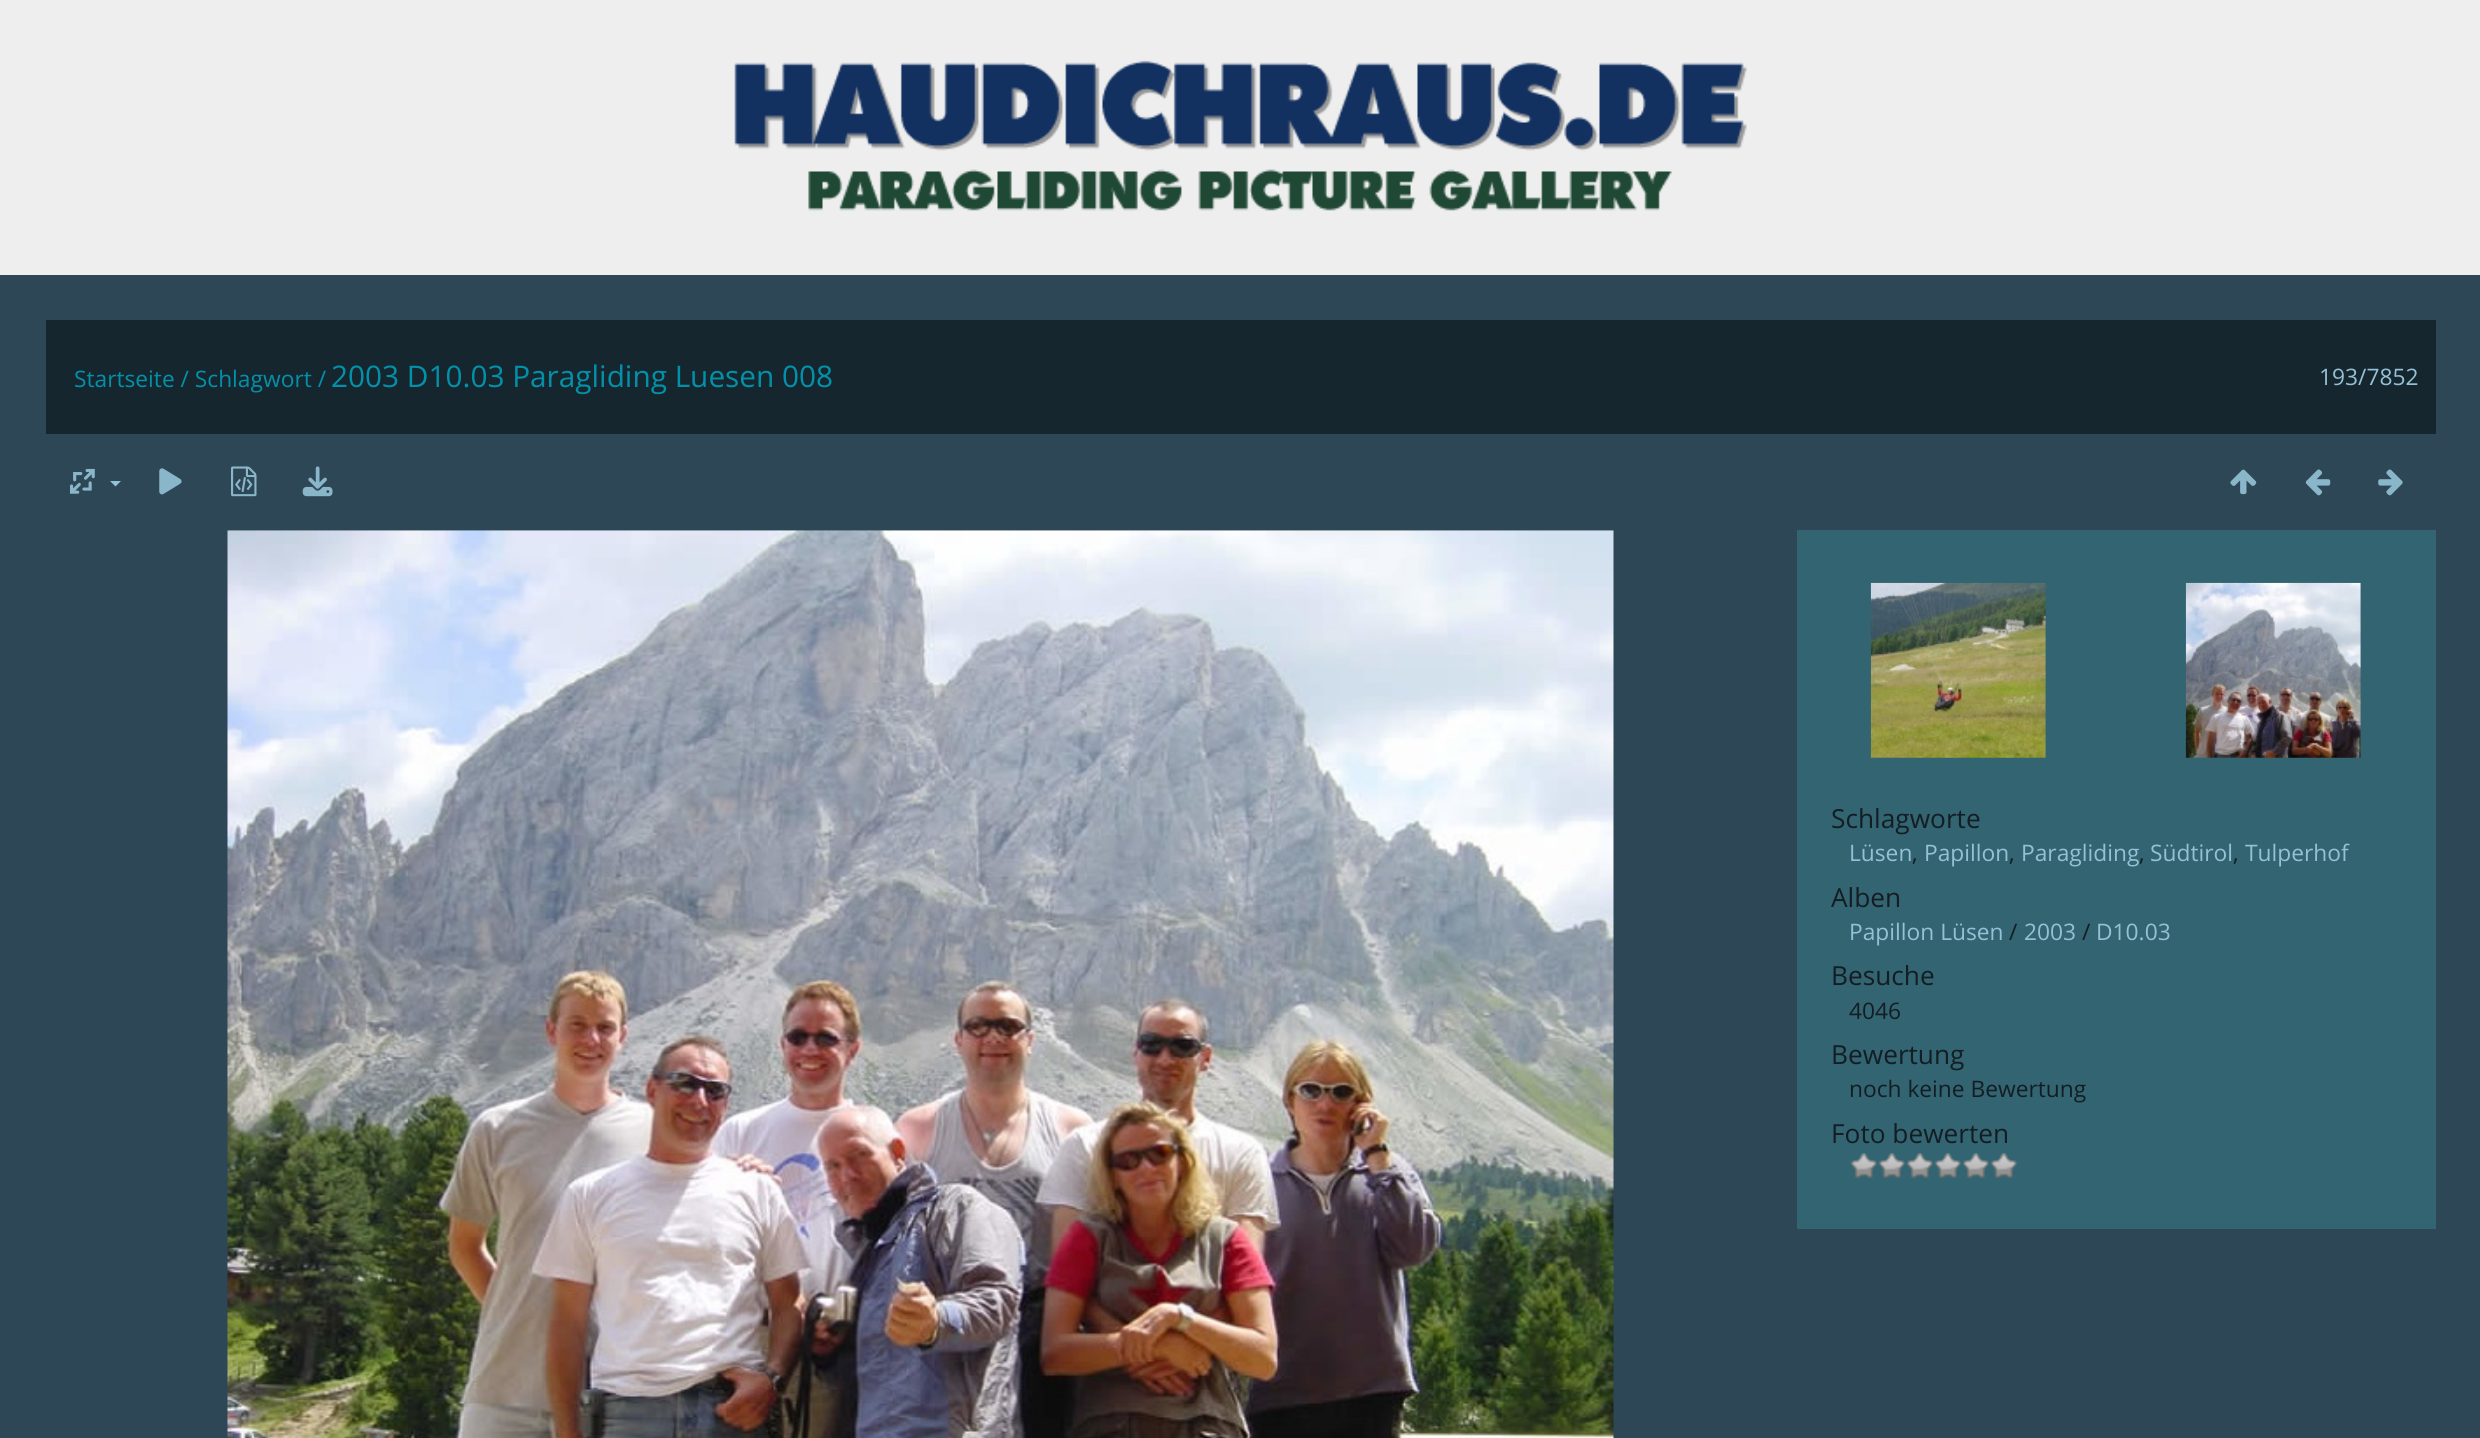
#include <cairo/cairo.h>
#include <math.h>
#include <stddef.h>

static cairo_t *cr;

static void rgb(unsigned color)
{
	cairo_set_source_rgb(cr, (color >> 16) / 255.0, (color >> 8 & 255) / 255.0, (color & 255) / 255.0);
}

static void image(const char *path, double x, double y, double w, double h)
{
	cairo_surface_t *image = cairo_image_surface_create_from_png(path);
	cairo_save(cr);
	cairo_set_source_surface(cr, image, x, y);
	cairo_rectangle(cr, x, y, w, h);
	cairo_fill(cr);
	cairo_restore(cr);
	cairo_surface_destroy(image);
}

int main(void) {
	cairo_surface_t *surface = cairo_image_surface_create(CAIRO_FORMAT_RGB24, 2480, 1438);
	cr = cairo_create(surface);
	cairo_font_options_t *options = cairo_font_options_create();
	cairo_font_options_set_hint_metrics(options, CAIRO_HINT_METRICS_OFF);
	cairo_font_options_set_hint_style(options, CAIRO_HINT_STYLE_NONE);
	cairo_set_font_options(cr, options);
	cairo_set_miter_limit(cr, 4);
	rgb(0x2e4756);
	cairo_paint(cr);
	rgb(0xeeeeee);
	cairo_rectangle(cr, 0, 0, 2480, 275);
	cairo_fill(cr);
	image("img/1.png", 734, 60, 1013, 151);
	rgb(0x16262e);
	cairo_rectangle(cr, 46, 320, 2390, 114);
	cairo_fill(cr);
	image("img/2.png", 70, 468, 25, 26);
	rgb(0x93c2d6);
	cairo_new_path(cr);
	cairo_move_to(cr, 110, 481);
	cairo_line_to(cr, 121, 481);
	cairo_line_to(cr, 115.5, 486.5);
	cairo_close_path(cr);
	cairo_fill(cr);
	image("img/3.png", 159, 468, 23, 27);
	image("img/4.png", 231, 466, 26, 31);
	image("img/5.png", 302, 466, 31, 31);
	image("img/6.png", 2230, 469, 27, 26);
	image("img/7.png", 2305, 469, 26, 27);
	image("img/8.png", 2378, 469, 25, 27);
	image("img/9.png", 227, 530, 1387, 908);
	rgb(0x326471);
	cairo_rectangle(cr, 1797, 530, 639, 699);
	cairo_fill(cr);
	image("img/10.png", 1870, 582, 176, 176);
	image("img/11.png", 2185, 582, 176, 176);
	image("img/12.png", 1850, 1153, 28, 26);
	image("img/13.png", 1878, 1153, 28, 26);
	image("img/12.png", 1906, 1153, 28, 26);
	image("img/13.png", 1934, 1153, 28, 26);
	image("img/13.png", 1962, 1153, 28, 26);
	image("img/13.png", 1990, 1153, 28, 26);
	cairo_select_font_face(cr, "Open Sans", CAIRO_FONT_SLANT_NORMAL, CAIRO_FONT_WEIGHT_NORMAL);
	cairo_set_font_size(cr, 22.75);
	rgb(0x0391aa);
	cairo_move_to(cr, 74, 387);
	cairo_show_text(cr, "Startseite / Schlagwort /");
	cairo_set_font_size(cr, 29.75);
	cairo_move_to(cr, 331, 387);
	cairo_show_text(cr, "2003 D10.03 Paragliding Luesen 008");
	cairo_set_font_size(cr, 22.75);
	rgb(0x93c2d6);
	cairo_move_to(cr, 2319, 385);
	cairo_show_text(cr, "193/7852");
	cairo_set_font_size(cr, 26.25);
	rgb(0x131d23);
	cairo_move_to(cr, 1831, 828);
	cairo_show_text(cr, "Schlagworte");
	cairo_set_font_size(cr, 22.75);
	rgb(0x93c2d6);
	cairo_move_to(cr, 1849, 861);
	cairo_show_text(cr, "Lüsen");
	rgb(0x131d23);
	cairo_move_to(cr, 1912, 861);
	cairo_show_text(cr, ",");
	rgb(0x93c2d6);
	cairo_move_to(cr, 1924, 861);
	cairo_show_text(cr, "Papillon");
	rgb(0x131d23);
	cairo_move_to(cr, 2009, 861);
	cairo_show_text(cr, ",");
	rgb(0x93c2d6);
	cairo_move_to(cr, 2021, 861);
	cairo_show_text(cr, "Paragliding");
	rgb(0x131d23);
	cairo_move_to(cr, 2139, 861);
	cairo_show_text(cr, ",");
	rgb(0x93c2d6);
	cairo_move_to(cr, 2150, 861);
	cairo_show_text(cr, "Südtirol");
	rgb(0x131d23);
	cairo_move_to(cr, 2233, 861);
	cairo_show_text(cr, ",");
	rgb(0x93c2d6);
	cairo_move_to(cr, 2245, 861);
	cairo_show_text(cr, "Tulperhof");
	cairo_set_font_size(cr, 26.25);
	rgb(0x131d23);
	cairo_move_to(cr, 1831, 907);
	cairo_show_text(cr, "Alben");
	cairo_set_font_size(cr, 22.75);
	rgb(0x93c2d6);
	cairo_move_to(cr, 1849, 940);
	cairo_show_text(cr, "Papillon Lüsen");
	rgb(0x131d23);
	cairo_move_to(cr, 2009, 940);
	cairo_show_text(cr, "/");
	rgb(0x93c2d6);
	cairo_move_to(cr, 2024, 940);
	cairo_show_text(cr, "2003");
	rgb(0x131d23);
	cairo_move_to(cr, 2082, 940);
	cairo_show_text(cr, "/");
	rgb(0x93c2d6);
	cairo_move_to(cr, 2096, 940);
	cairo_show_text(cr, "D10.03");
	cairo_set_font_size(cr, 26.25);
	rgb(0x131d23);
	cairo_move_to(cr, 1831, 985);
	cairo_show_text(cr, "Besuche");
	cairo_set_font_size(cr, 22.75);
	cairo_move_to(cr, 1849, 1019);
	cairo_show_text(cr, "4046");
	cairo_set_font_size(cr, 26.25);
	cairo_move_to(cr, 1831, 1064);
	cairo_show_text(cr, "Bewertung");
	cairo_set_font_size(cr, 22.75);
	cairo_move_to(cr, 1849, 1097);
	cairo_show_text(cr, "noch keine Bewertung");
	cairo_set_font_size(cr, 26.25);
	cairo_move_to(cr, 1831, 1143);
	cairo_show_text(cr, "Foto bewerten");
	cairo_surface_write_to_png(surface, "page.png");
	cairo_font_options_destroy(options);
	cairo_destroy(cr);
	cairo_surface_destroy(surface);
	return 0;
}
